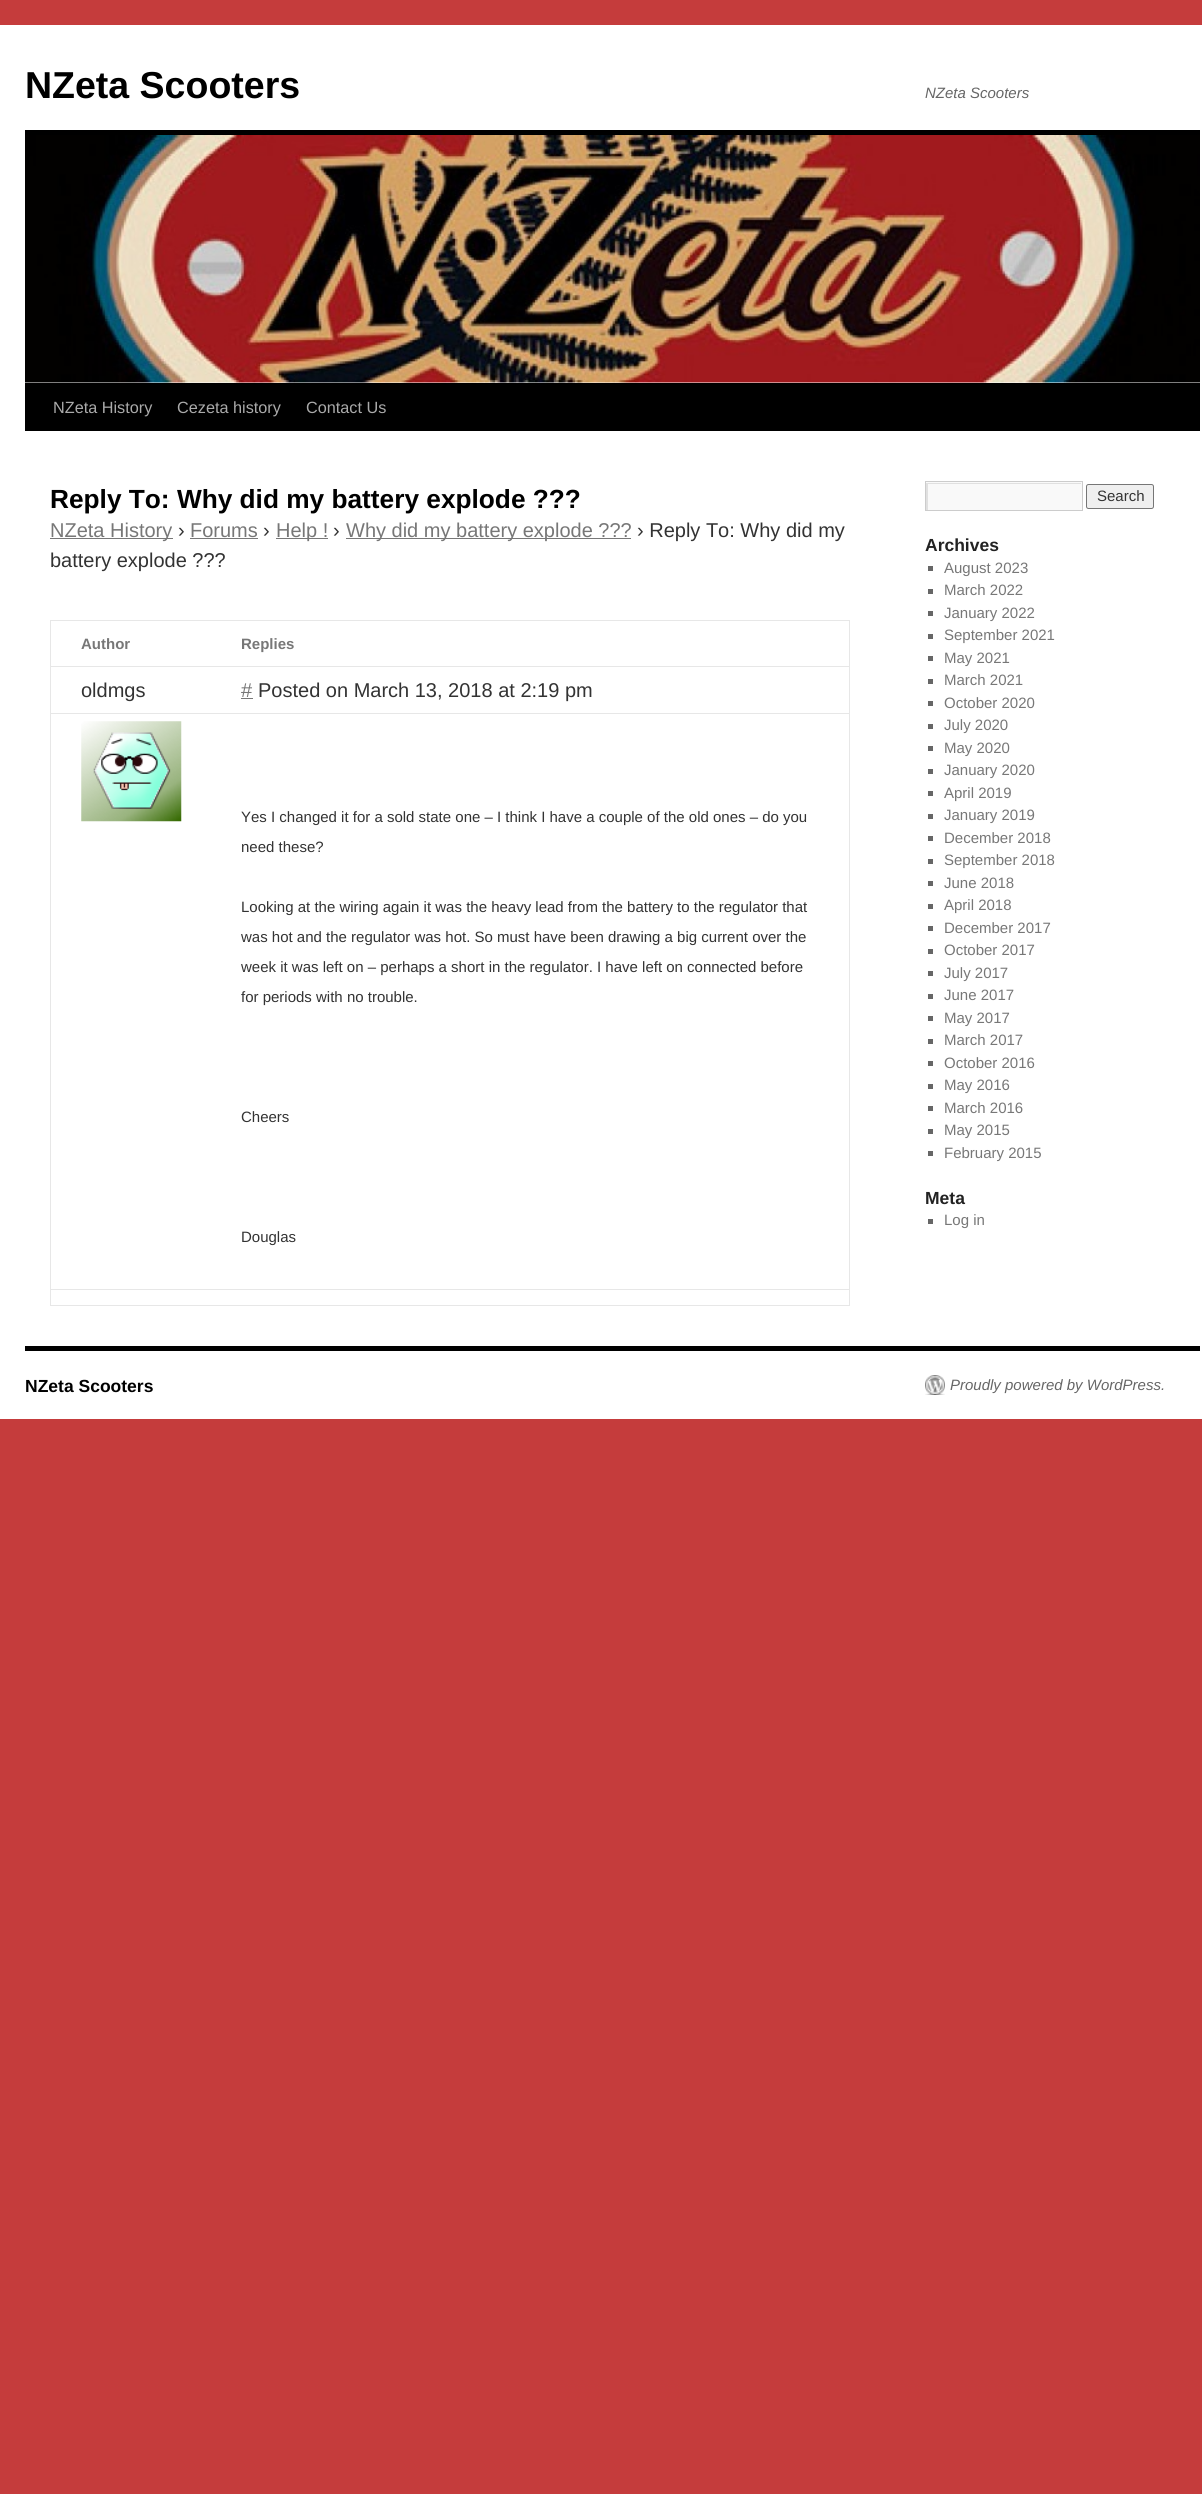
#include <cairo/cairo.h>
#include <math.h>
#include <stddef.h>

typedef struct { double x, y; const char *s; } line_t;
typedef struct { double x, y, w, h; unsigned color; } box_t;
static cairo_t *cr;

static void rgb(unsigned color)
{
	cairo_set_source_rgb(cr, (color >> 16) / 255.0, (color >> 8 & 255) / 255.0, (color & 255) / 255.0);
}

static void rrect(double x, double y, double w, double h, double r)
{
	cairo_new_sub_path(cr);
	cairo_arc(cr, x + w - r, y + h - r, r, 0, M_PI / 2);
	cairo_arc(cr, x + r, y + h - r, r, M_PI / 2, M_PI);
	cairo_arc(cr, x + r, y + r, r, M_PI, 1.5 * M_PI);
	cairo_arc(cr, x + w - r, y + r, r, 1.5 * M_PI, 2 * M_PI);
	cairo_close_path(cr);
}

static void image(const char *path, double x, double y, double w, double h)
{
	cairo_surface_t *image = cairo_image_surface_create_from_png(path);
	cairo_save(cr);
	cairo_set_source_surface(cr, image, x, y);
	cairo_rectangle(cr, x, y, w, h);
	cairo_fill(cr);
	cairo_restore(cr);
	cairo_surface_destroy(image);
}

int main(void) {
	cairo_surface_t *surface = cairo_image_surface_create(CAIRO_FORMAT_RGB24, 1202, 2494);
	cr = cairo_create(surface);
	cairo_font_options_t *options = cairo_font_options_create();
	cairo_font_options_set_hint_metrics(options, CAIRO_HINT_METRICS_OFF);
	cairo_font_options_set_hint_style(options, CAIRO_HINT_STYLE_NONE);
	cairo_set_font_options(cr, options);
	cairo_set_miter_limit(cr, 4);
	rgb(0xc53c3c);
	cairo_paint(cr);
	{
		static const box_t items[] = {
			{0, 25, 1202, 1394, 0xffffff},
			{25, 130, 1175, 5, 0x000000},
			{25, 383, 1175, 48, 0x000000},
		};
		for (size_t i = 0; i < sizeof items / sizeof *items; i++) {
			rgb(items[i].color);
			cairo_rectangle(cr, items[i].x, items[i].y, items[i].w, items[i].h);
			cairo_fill(cr);
		}
	}
	image("img/1.png", 25, 135, 1175, 248);
	{
		static const box_t items[] = {
			{50, 538, 123, 1, 0x777777},
			{190, 538, 68, 1, 0x777777},
			{276, 538, 52, 1, 0x777777},
			{346, 538, 285, 1, 0x777777},
			{50, 620, 800, 1, 0xe7e7e7},
			{849, 620, 1, 686, 0xe7e7e7},
			{50, 1305, 800, 1, 0xe7e7e7},
			{50, 620, 1, 686, 0xe7e7e7},
			{50, 666, 800, 1, 0xe7e7e7},
			{241, 698, 12, 1, 0x777777},
		};
		for (size_t i = 0; i < sizeof items / sizeof *items; i++) {
			rgb(items[i].color);
			cairo_rectangle(cr, items[i].x, items[i].y, items[i].w, items[i].h);
			cairo_fill(cr);
		}
	}
	image("img/2.png", 81, 721, 101, 101);
	{
		static const box_t items[] = {
			{50, 713, 800, 1, 0xe7e7e7},
			{50, 1289, 800, 1, 0xe7e7e7},
			{926, 482, 156, 28, 0xf9f9f9},
		};
		for (size_t i = 0; i < sizeof items / sizeof *items; i++) {
			rgb(items[i].color);
			cairo_rectangle(cr, items[i].x, items[i].y, items[i].w, items[i].h);
			cairo_fill(cr);
		}
	}
	cairo_save(cr);
	cairo_rectangle(cr, 926, 483, 155, 27);
	cairo_clip(cr);
	rgb(0xe0e0e0);
	cairo_set_fill_rule(cr, CAIRO_FILL_RULE_EVEN_ODD);
	cairo_new_path(cr);
	cairo_move_to(cr, 802, 359);
	cairo_line_to(cr, 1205, 359);
	cairo_line_to(cr, 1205, 634);
	cairo_line_to(cr, 802, 634);
	cairo_close_path(cr);
	cairo_move_to(cr, 928, 484);
	cairo_line_to(cr, 1082, 484);
	cairo_line_to(cr, 1082, 511);
	cairo_line_to(cr, 928, 511);
	cairo_close_path(cr);
	cairo_fill(cr);
	cairo_restore(cr);
	cairo_rectangle(cr, 925.5, 481.5, 157, 29);
	rgb(0xcccccc);
	cairo_set_line_width(cr, 1);
	cairo_stroke(cr);
	rgb(0xefefef);
	rrect(1086.5, 484.5, 67, 24, 2);
	cairo_fill_preserve(cr);
	rgb(0x767676);
	cairo_stroke(cr);
	{
		static const box_t items[] = {
			{928, 566, 5, 5, 0x666666},
			{928, 589, 5, 5, 0x666666},
			{928, 611, 5, 5, 0x666666},
			{928, 634, 5, 5, 0x666666},
			{928, 656, 5, 5, 0x666666},
			{928, 679, 5, 5, 0x666666},
			{928, 701, 5, 5, 0x666666},
			{928, 724, 5, 5, 0x666666},
			{928, 746, 5, 5, 0x666666},
			{928, 769, 5, 5, 0x666666},
			{928, 791, 5, 5, 0x666666},
			{928, 814, 5, 5, 0x666666},
			{928, 836, 5, 5, 0x666666},
			{928, 859, 5, 5, 0x666666},
			{928, 881, 5, 5, 0x666666},
			{928, 904, 5, 5, 0x666666},
			{928, 926, 5, 5, 0x666666},
			{928, 949, 5, 5, 0x666666},
			{928, 971, 5, 5, 0x666666},
			{928, 994, 5, 5, 0x666666},
			{928, 1016, 5, 5, 0x666666},
			{928, 1039, 5, 5, 0x666666},
			{928, 1061, 5, 5, 0x666666},
			{928, 1084, 5, 5, 0x666666},
			{928, 1106, 5, 5, 0x666666},
			{928, 1129, 5, 5, 0x666666},
			{928, 1151, 5, 5, 0x666666},
			{928, 1219, 5, 5, 0x666666},
			{25, 1346, 1175, 5, 0x000000},
		};
		for (size_t i = 0; i < sizeof items / sizeof *items; i++) {
			rgb(items[i].color);
			cairo_rectangle(cr, items[i].x, items[i].y, items[i].w, items[i].h);
			cairo_fill(cr);
		}
	}
	image("img/3.png", 925, 1375, 20, 20);
	cairo_select_font_face(cr, "Liberation Sans", CAIRO_FONT_SLANT_NORMAL, CAIRO_FONT_WEIGHT_BOLD);
	cairo_set_font_size(cr, 37.5);
	cairo_move_to(cr, 25, 98);
	cairo_show_text(cr, "NZeta Scooters");
	cairo_select_font_face(cr, "Liberation Sans", CAIRO_FONT_SLANT_ITALIC, CAIRO_FONT_WEIGHT_NORMAL);
	cairo_set_font_size(cr, 15);
	rgb(0x666666);
	cairo_move_to(cr, 925, 98);
	cairo_show_text(cr, "NZeta Scooters");
	cairo_select_font_face(cr, "Liberation Sans", CAIRO_FONT_SLANT_NORMAL, CAIRO_FONT_WEIGHT_NORMAL);
	cairo_set_font_size(cr, 16.25);
	rgb(0xaaaaaa);
	{
		static const line_t items[] = {
			{53, 413, "NZeta History"},
			{177, 413, "Cezeta history"},
			{306, 413, "Contact Us"},
		};
		for (size_t i = 0; i < sizeof items / sizeof *items; i++) {
			cairo_move_to(cr, items[i].x, items[i].y);
			cairo_show_text(cr, items[i].s);
		}
	}
	cairo_select_font_face(cr, "Liberation Sans", CAIRO_FONT_SLANT_NORMAL, CAIRO_FONT_WEIGHT_BOLD);
	cairo_set_font_size(cr, 26.25);
	rgb(0x000000);
	cairo_move_to(cr, 50, 508);
	cairo_show_text(cr, "Reply To: Why did my battery explode ?\077?");
	cairo_select_font_face(cr, "Liberation Sans", CAIRO_FONT_SLANT_NORMAL, CAIRO_FONT_WEIGHT_NORMAL);
	cairo_set_font_size(cr, 20);
	rgb(0x777777);
	cairo_move_to(cr, 50, 537);
	cairo_show_text(cr, "NZeta History");
	rgb(0x333333);
	cairo_move_to(cr, 178, 537);
	cairo_show_text(cr, "›");
	rgb(0x777777);
	cairo_move_to(cr, 190, 537);
	cairo_show_text(cr, "Forums");
	rgb(0x333333);
	cairo_move_to(cr, 263, 537);
	cairo_show_text(cr, "›");
	rgb(0x777777);
	cairo_move_to(cr, 276, 537);
	cairo_show_text(cr, "Help !");
	rgb(0x333333);
	cairo_move_to(cr, 333, 537);
	cairo_show_text(cr, "›");
	rgb(0x777777);
	cairo_move_to(cr, 346, 537);
	cairo_show_text(cr, "Why did my battery explode ?\077?");
	rgb(0x333333);
	cairo_move_to(cr, 637, 537);
	cairo_show_text(cr, "› Reply To: Why did my");
	cairo_move_to(cr, 50, 567);
	cairo_show_text(cr, "battery explode ?\077?");
	cairo_select_font_face(cr, "Liberation Sans", CAIRO_FONT_SLANT_NORMAL, CAIRO_FONT_WEIGHT_BOLD);
	cairo_set_font_size(cr, 15);
	rgb(0x777777);
	cairo_move_to(cr, 81, 649);
	cairo_show_text(cr, "Author");
	cairo_move_to(cr, 241, 649);
	cairo_show_text(cr, "Replies");
	cairo_select_font_face(cr, "Liberation Sans", CAIRO_FONT_SLANT_NORMAL, CAIRO_FONT_WEIGHT_NORMAL);
	cairo_set_font_size(cr, 20);
	rgb(0x333333);
	cairo_move_to(cr, 81, 697);
	cairo_show_text(cr, "oldmgs");
	rgb(0x777777);
	cairo_move_to(cr, 241, 697);
	cairo_show_text(cr, "#");
	rgb(0x333333);
	cairo_move_to(cr, 258, 697);
	cairo_show_text(cr, "Posted on March 13, 2018 at 2:19 pm");
	cairo_set_font_size(cr, 15);
	{
		static const line_t items[] = {
			{241, 822, "Yes I changed it for a sold state one – I think I have a couple of the old ones – do you"},
			{241, 852, "need these?"},
			{241, 912, "Looking at the wiring again it was the heavy lead from the battery to the regulator that"},
			{241, 942, "was hot and the regulator was hot. So must have been drawing a big current over the"},
			{241, 972, "week it was left on – perhaps a short in the regulator. I have left on connected before"},
			{241, 1002, "for periods with no trouble."},
			{241, 1122, "Cheers"},
			{241, 1242, "Douglas"},
			{1097, 501, "Search"},
		};
		for (size_t i = 0; i < sizeof items / sizeof *items; i++) {
			cairo_move_to(cr, items[i].x, items[i].y);
			cairo_show_text(cr, items[i].s);
		}
	}
	cairo_select_font_face(cr, "Liberation Sans", CAIRO_FONT_SLANT_NORMAL, CAIRO_FONT_WEIGHT_BOLD);
	cairo_set_font_size(cr, 17.5);
	rgb(0x222222);
	cairo_move_to(cr, 925, 551);
	cairo_show_text(cr, "Archives");
	cairo_select_font_face(cr, "Liberation Sans", CAIRO_FONT_SLANT_NORMAL, CAIRO_FONT_WEIGHT_NORMAL);
	cairo_set_font_size(cr, 15);
	rgb(0x777777);
	{
		static const line_t items[] = {
			{944, 573, "August 2023"},
			{944, 595, "March 2022"},
			{944, 618, "January 2022"},
			{944, 640, "September 2021"},
			{944, 663, "May 2021"},
			{944, 685, "March 2021"},
			{944, 708, "October 2020"},
			{944, 730, "July 2020"},
			{944, 753, "May 2020"},
			{944, 775, "January 2020"},
			{944, 798, "April 2019"},
			{944, 820, "January 2019"},
			{944, 843, "December 2018"},
			{944, 865, "September 2018"},
			{944, 888, "June 2018"},
			{944, 910, "April 2018"},
			{944, 933, "December 2017"},
			{944, 955, "October 2017"},
			{944, 978, "July 2017"},
			{944, 1000, "June 2017"},
			{944, 1023, "May 2017"},
			{944, 1045, "March 2017"},
			{944, 1068, "October 2016"},
			{944, 1090, "May 2016"},
			{944, 1113, "March 2016"},
			{944, 1135, "May 2015"},
			{944, 1158, "February 2015"},
		};
		for (size_t i = 0; i < sizeof items / sizeof *items; i++) {
			cairo_move_to(cr, items[i].x, items[i].y);
			cairo_show_text(cr, items[i].s);
		}
	}
	cairo_select_font_face(cr, "Liberation Sans", CAIRO_FONT_SLANT_NORMAL, CAIRO_FONT_WEIGHT_BOLD);
	cairo_set_font_size(cr, 17.5);
	rgb(0x222222);
	cairo_move_to(cr, 925, 1204);
	cairo_show_text(cr, "Meta");
	cairo_select_font_face(cr, "Liberation Sans", CAIRO_FONT_SLANT_NORMAL, CAIRO_FONT_WEIGHT_NORMAL);
	cairo_set_font_size(cr, 15);
	rgb(0x777777);
	cairo_move_to(cr, 944, 1225);
	cairo_show_text(cr, "Log in");
	cairo_select_font_face(cr, "Liberation Sans", CAIRO_FONT_SLANT_NORMAL, CAIRO_FONT_WEIGHT_BOLD);
	cairo_set_font_size(cr, 17.5);
	rgb(0x000000);
	cairo_move_to(cr, 25, 1392);
	cairo_show_text(cr, "NZeta Scooters");
	cairo_select_font_face(cr, "Liberation Sans", CAIRO_FONT_SLANT_ITALIC, CAIRO_FONT_WEIGHT_NORMAL);
	cairo_set_font_size(cr, 15);
	rgb(0x666666);
	cairo_move_to(cr, 950, 1390);
	cairo_show_text(cr, "Proudly powered by WordPress.");
	cairo_surface_write_to_png(surface, "page.png");
	cairo_font_options_destroy(options);
	cairo_destroy(cr);
	cairo_surface_destroy(surface);
	return 0;
}
